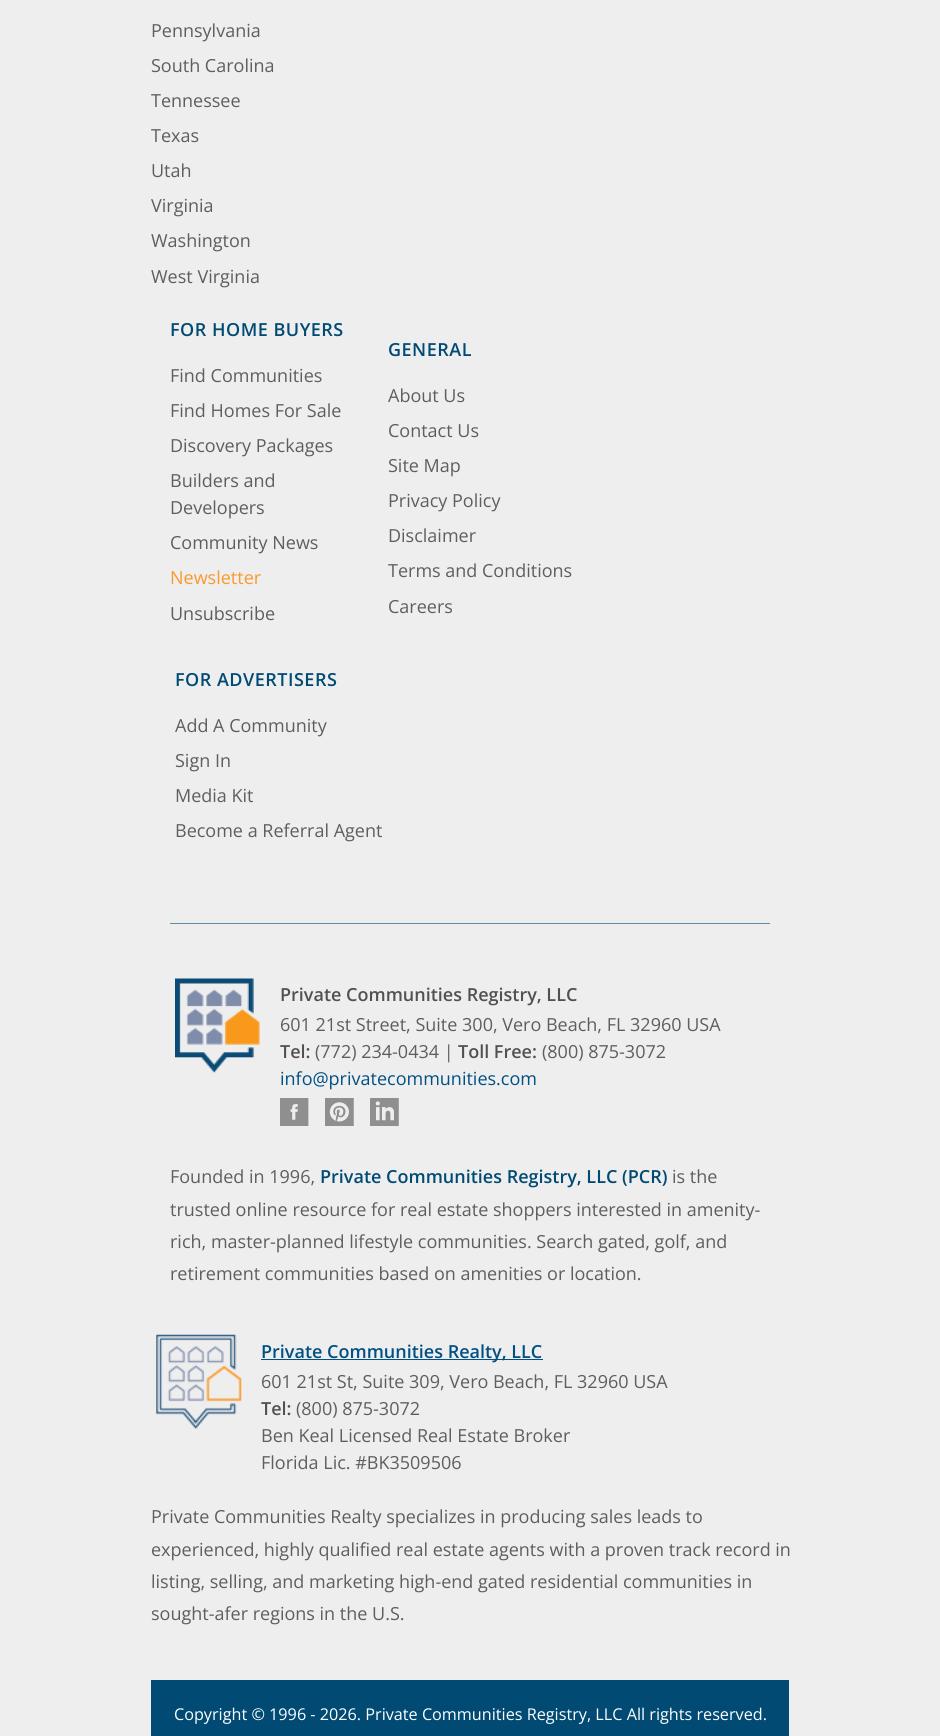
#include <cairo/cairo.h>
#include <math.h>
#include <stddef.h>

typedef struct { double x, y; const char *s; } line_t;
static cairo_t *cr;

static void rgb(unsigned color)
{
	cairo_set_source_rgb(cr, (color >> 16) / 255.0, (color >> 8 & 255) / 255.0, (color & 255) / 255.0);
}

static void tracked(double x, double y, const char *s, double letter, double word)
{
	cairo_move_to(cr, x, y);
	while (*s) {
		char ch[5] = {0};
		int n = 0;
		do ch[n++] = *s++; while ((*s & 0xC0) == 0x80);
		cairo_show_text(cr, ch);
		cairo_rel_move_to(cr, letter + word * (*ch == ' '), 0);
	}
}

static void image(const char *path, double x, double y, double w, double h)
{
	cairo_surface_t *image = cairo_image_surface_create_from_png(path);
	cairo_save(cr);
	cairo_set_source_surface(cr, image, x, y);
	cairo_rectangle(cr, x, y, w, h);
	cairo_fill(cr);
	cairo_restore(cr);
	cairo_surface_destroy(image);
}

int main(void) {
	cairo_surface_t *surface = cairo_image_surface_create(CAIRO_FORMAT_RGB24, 940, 1736);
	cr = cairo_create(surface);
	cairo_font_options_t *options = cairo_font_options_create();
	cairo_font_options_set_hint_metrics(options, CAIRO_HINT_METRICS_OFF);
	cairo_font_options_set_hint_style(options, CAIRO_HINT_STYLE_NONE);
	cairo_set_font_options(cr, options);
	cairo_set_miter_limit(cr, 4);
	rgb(0xeeeeee);
	cairo_paint(cr);
	rgb(0x5f8ca5);
	cairo_rectangle(cr, 170, 923, 600, 1);
	cairo_fill(cr);
	image("img/1.png", 175, 978, 85, 95);
	image("img/2.png", 280, 1098, 29, 28);
	image("img/3.png", 325, 1098, 29, 28);
	image("img/4.png", 370, 1098, 29, 28);
	image("img/5.png", 156, 1334, 86, 95);
	rgb(0x005084);
	cairo_rectangle(cr, 261, 1359, 282, 1);
	cairo_fill(cr);
	rgb(0x004a74);
	cairo_rectangle(cr, 151, 1680, 638, 56);
	cairo_fill(cr);
	cairo_select_font_face(cr, "Open Sans", CAIRO_FONT_SLANT_NORMAL, CAIRO_FONT_WEIGHT_NORMAL);
	cairo_set_font_size(cr, 18);
	rgb(0x5e5e5e);
	{
		static const line_t items[] = {
			{151, 37, "Pennsylvania"},
			{151, 72, "South Carolina"},
			{151, 107, "Tennessee"},
			{151, 142, "Texas"},
			{151, 177, "Utah"},
			{151, 212, "Virginia"},
			{151, 247, "Washington"},
			{151, 283, "West Virginia"},
		};
		for (size_t i = 0; i < sizeof items / sizeof *items; i++) {
			cairo_move_to(cr, items[i].x, items[i].y);
			cairo_show_text(cr, items[i].s);
		}
	}
	cairo_select_font_face(cr, "Open Sans SemiBold", CAIRO_FONT_SLANT_NORMAL, CAIRO_FONT_WEIGHT_NORMAL);
	rgb(0x004a74);
	tracked(170, 336, "FOR HOME BUYERS", 0.5, 0);
	cairo_select_font_face(cr, "Open Sans", CAIRO_FONT_SLANT_NORMAL, CAIRO_FONT_WEIGHT_NORMAL);
	rgb(0x5e5e5e);
	{
		static const line_t items[] = {
			{170, 382, "Find Communities"},
			{170, 417, "Find Homes For Sale"},
			{170, 452, "Discovery Packages"},
			{170, 487, "Builders and"},
			{170, 514, "Developers"},
			{170, 549, "Community News"},
		};
		for (size_t i = 0; i < sizeof items / sizeof *items; i++) {
			cairo_move_to(cr, items[i].x, items[i].y);
			cairo_show_text(cr, items[i].s);
		}
	}
	rgb(0xfb992b);
	cairo_move_to(cr, 170, 584);
	cairo_show_text(cr, "Newsletter");
	rgb(0x5e5e5e);
	cairo_move_to(cr, 170, 620);
	cairo_show_text(cr, "Unsubscribe");
	cairo_select_font_face(cr, "Open Sans SemiBold", CAIRO_FONT_SLANT_NORMAL, CAIRO_FONT_WEIGHT_NORMAL);
	rgb(0x004a74);
	tracked(388, 356, "GENERAL", 0.5, 0);
	cairo_select_font_face(cr, "Open Sans", CAIRO_FONT_SLANT_NORMAL, CAIRO_FONT_WEIGHT_NORMAL);
	rgb(0x5e5e5e);
	{
		static const line_t items[] = {
			{388, 402, "About Us"},
			{388, 437, "Contact Us"},
			{388, 472, "Site Map"},
			{388, 507, "Privacy Policy"},
			{388, 542, "Disclaimer"},
			{388, 577, "Terms and Conditions"},
			{388, 613, "Careers"},
		};
		for (size_t i = 0; i < sizeof items / sizeof *items; i++) {
			cairo_move_to(cr, items[i].x, items[i].y);
			cairo_show_text(cr, items[i].s);
		}
	}
	cairo_select_font_face(cr, "Open Sans SemiBold", CAIRO_FONT_SLANT_NORMAL, CAIRO_FONT_WEIGHT_NORMAL);
	rgb(0x004a74);
	tracked(175, 686, "FOR ADVERTISERS", 0.5, 0);
	cairo_select_font_face(cr, "Open Sans", CAIRO_FONT_SLANT_NORMAL, CAIRO_FONT_WEIGHT_NORMAL);
	rgb(0x5e5e5e);
	{
		static const line_t items[] = {
			{175, 732, "Add A Community"},
			{175, 767, "Sign In"},
			{175, 802, "Media Kit"},
			{175, 837, "Become a Referral Agent"},
		};
		for (size_t i = 0; i < sizeof items / sizeof *items; i++) {
			cairo_move_to(cr, items[i].x, items[i].y);
			cairo_show_text(cr, items[i].s);
		}
	}
	cairo_select_font_face(cr, "Open Sans SemiBold", CAIRO_FONT_SLANT_NORMAL, CAIRO_FONT_WEIGHT_NORMAL);
	rgb(0x515151);
	cairo_move_to(cr, 280, 1001);
	cairo_show_text(cr, "Private Communities Registry, LLC");
	cairo_select_font_face(cr, "Open Sans", CAIRO_FONT_SLANT_NORMAL, CAIRO_FONT_WEIGHT_NORMAL);
	rgb(0x5e5e5e);
	cairo_move_to(cr, 280, 1031);
	cairo_show_text(cr, "601 21st Street, Suite 300, Vero Beach, FL 32960 USA");
	cairo_select_font_face(cr, "Open Sans SemiBold", CAIRO_FONT_SLANT_NORMAL, CAIRO_FONT_WEIGHT_NORMAL);
	rgb(0x515151);
	cairo_move_to(cr, 280, 1058);
	cairo_show_text(cr, "Tel:");
	cairo_select_font_face(cr, "Open Sans", CAIRO_FONT_SLANT_NORMAL, CAIRO_FONT_WEIGHT_NORMAL);
	rgb(0x5e5e5e);
	cairo_move_to(cr, 315, 1058);
	cairo_show_text(cr, "(772) 234-0434 |");
	cairo_select_font_face(cr, "Open Sans SemiBold", CAIRO_FONT_SLANT_NORMAL, CAIRO_FONT_WEIGHT_NORMAL);
	rgb(0x515151);
	cairo_move_to(cr, 458, 1058);
	cairo_show_text(cr, "Toll Free:");
	cairo_select_font_face(cr, "Open Sans", CAIRO_FONT_SLANT_NORMAL, CAIRO_FONT_WEIGHT_NORMAL);
	rgb(0x5e5e5e);
	cairo_move_to(cr, 542, 1058);
	cairo_show_text(cr, "(800) 875-3072");
	rgb(0x005084);
	cairo_move_to(cr, 280, 1085);
	cairo_show_text(cr, "info@privatecommunities.com");
	rgb(0x5e5e5e);
	cairo_move_to(cr, 170, 1183);
	cairo_show_text(cr, "Founded in 1996,");
	cairo_select_font_face(cr, "Open Sans SemiBold", CAIRO_FONT_SLANT_NORMAL, CAIRO_FONT_WEIGHT_NORMAL);
	rgb(0x004a74);
	cairo_move_to(cr, 320, 1183);
	cairo_show_text(cr, "Private Communities Registry, LLC (PCR)");
	cairo_select_font_face(cr, "Open Sans", CAIRO_FONT_SLANT_NORMAL, CAIRO_FONT_WEIGHT_NORMAL);
	rgb(0x5e5e5e);
	{
		static const line_t items[] = {
			{672, 1183, "is the"},
			{170, 1216, "trusted online resource for real estate shoppers interested in amenity-"},
			{170, 1248, "rich, master-planned lifestyle communities. Search gated, golf, and"},
			{170, 1280, "retirement communities based on amenities or location."},
		};
		for (size_t i = 0; i < sizeof items / sizeof *items; i++) {
			cairo_move_to(cr, items[i].x, items[i].y);
			cairo_show_text(cr, items[i].s);
		}
	}
	cairo_select_font_face(cr, "Open Sans SemiBold", CAIRO_FONT_SLANT_NORMAL, CAIRO_FONT_WEIGHT_NORMAL);
	rgb(0x005084);
	cairo_move_to(cr, 261, 1358);
	cairo_show_text(cr, "Private Communities Realty, LLC");
	cairo_select_font_face(cr, "Open Sans", CAIRO_FONT_SLANT_NORMAL, CAIRO_FONT_WEIGHT_NORMAL);
	rgb(0x5e5e5e);
	cairo_move_to(cr, 261, 1388);
	cairo_show_text(cr, "601 21st St, Suite 309, Vero Beach, FL 32960 USA");
	cairo_select_font_face(cr, "Open Sans SemiBold", CAIRO_FONT_SLANT_NORMAL, CAIRO_FONT_WEIGHT_NORMAL);
	rgb(0x515151);
	cairo_move_to(cr, 261, 1415);
	cairo_show_text(cr, "Tel:");
	cairo_select_font_face(cr, "Open Sans", CAIRO_FONT_SLANT_NORMAL, CAIRO_FONT_WEIGHT_NORMAL);
	rgb(0x5e5e5e);
	{
		static const line_t items[] = {
			{296, 1415, "(800) 875-3072"},
			{261, 1442, "Ben Keal Licensed Real Estate Broker"},
			{261, 1469, "Florida Lic. #BK3509506"},
			{151, 1523, "Private Communities Realty specializes in producing sales leads to"},
			{151, 1556, "experienced, highly qualified real estate agents with a proven track record in"},
			{151, 1588, "listing, selling, and marketing high-end gated residential communities in"},
			{151, 1620, "sought-afer regions in the U.S."},
		};
		for (size_t i = 0; i < sizeof items / sizeof *items; i++) {
			cairo_move_to(cr, items[i].x, items[i].y);
			cairo_show_text(cr, items[i].s);
		}
	}
	cairo_set_font_size(cr, 16.2);
	rgb(0xffffff);
	cairo_move_to(cr, 174, 1720);
	cairo_show_text(cr, "Copyright © 1996 - 2026. Private Communities Registry, LLC All rights reserved.");
	cairo_surface_write_to_png(surface, "page.png");
	cairo_font_options_destroy(options);
	cairo_destroy(cr);
	cairo_surface_destroy(surface);
	return 0;
}
